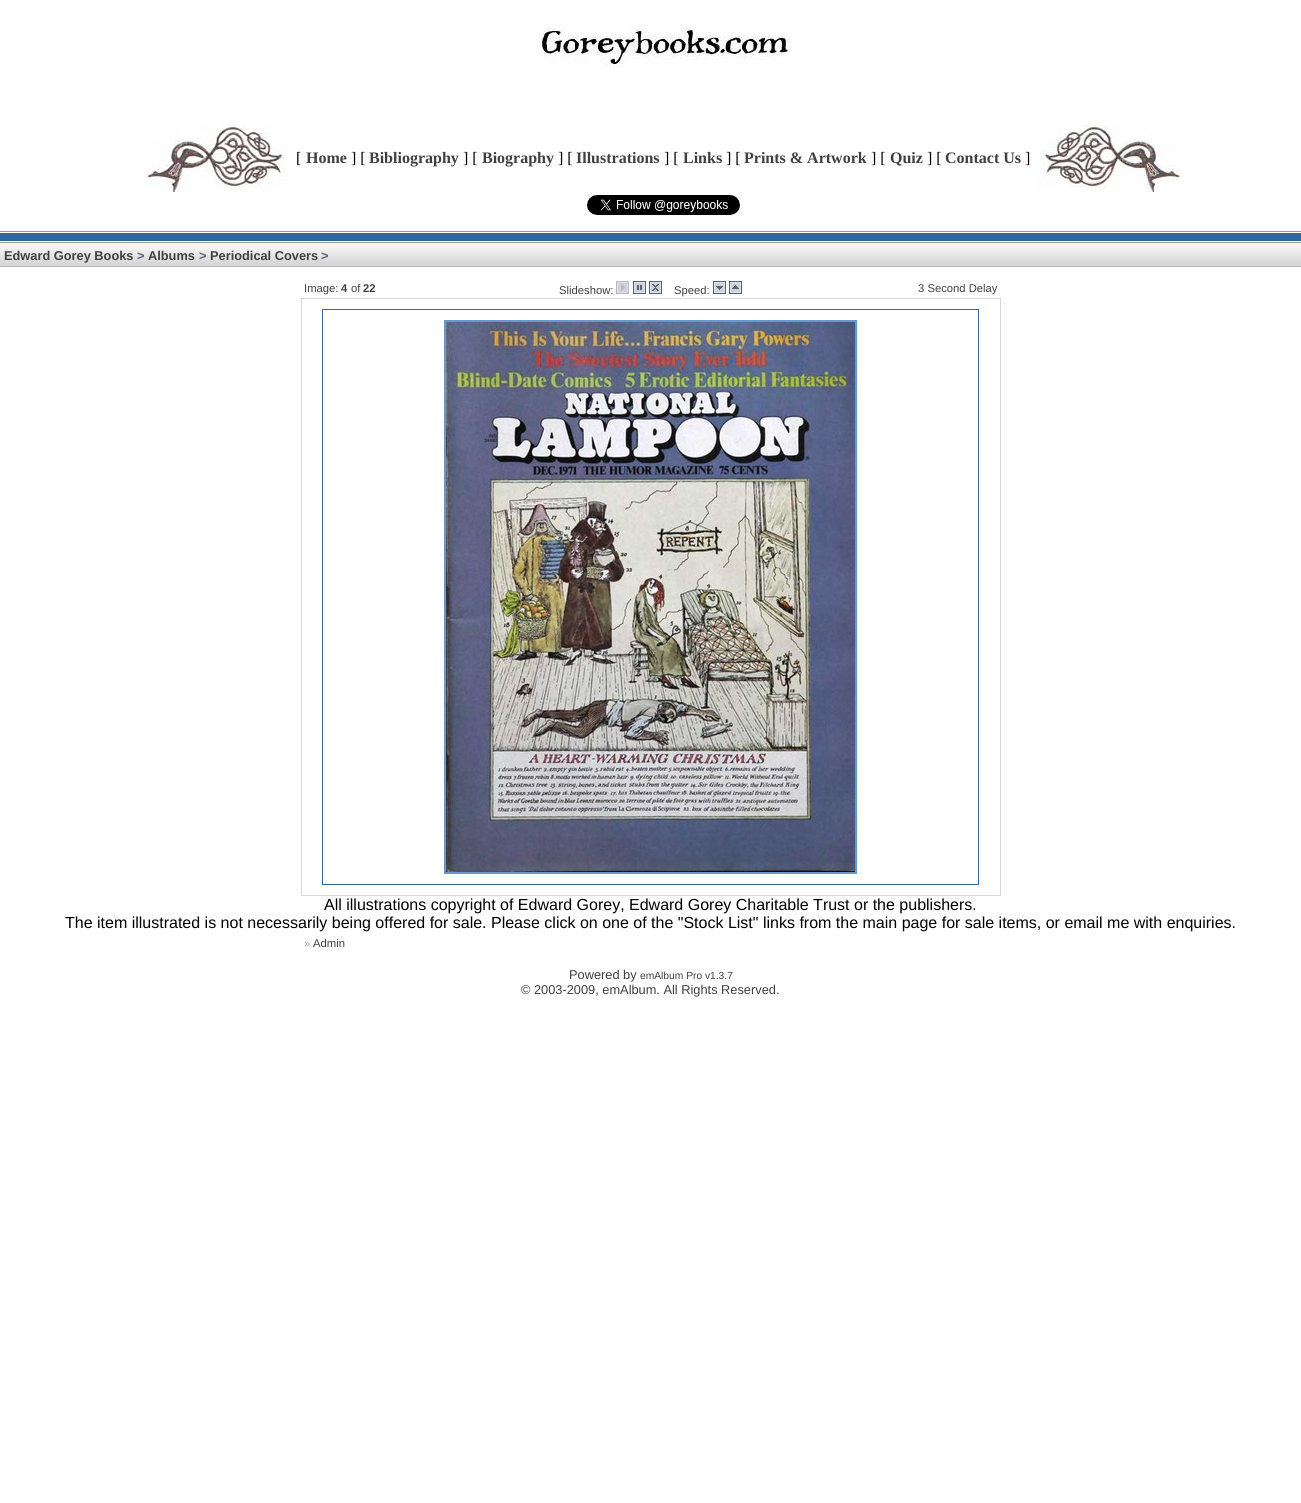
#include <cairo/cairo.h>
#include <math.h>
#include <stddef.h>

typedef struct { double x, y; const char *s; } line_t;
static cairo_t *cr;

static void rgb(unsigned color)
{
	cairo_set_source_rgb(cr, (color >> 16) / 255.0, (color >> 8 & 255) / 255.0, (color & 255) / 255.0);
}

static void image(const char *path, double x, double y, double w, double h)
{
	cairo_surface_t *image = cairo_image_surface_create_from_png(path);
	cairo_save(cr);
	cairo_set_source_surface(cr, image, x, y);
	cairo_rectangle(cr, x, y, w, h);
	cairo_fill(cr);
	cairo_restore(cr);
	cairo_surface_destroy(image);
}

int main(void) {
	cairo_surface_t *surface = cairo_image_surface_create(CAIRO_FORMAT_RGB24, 1301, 1503);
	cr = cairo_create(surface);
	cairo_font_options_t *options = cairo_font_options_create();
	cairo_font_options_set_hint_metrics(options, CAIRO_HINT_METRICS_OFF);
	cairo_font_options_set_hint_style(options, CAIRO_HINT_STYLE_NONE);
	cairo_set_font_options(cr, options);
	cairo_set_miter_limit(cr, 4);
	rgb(0xffffff);
	cairo_paint(cr);
	image("img/1.png", 542, 28, 248, 40);
	image("img/2.png", 142, 124, 144, 68);
	image("img/3.png", 1035, 124, 149, 68);
	image("img/4.png", 587, 195, 153, 20);
	image("img/5.png", 0, 231, 1301, 12);
	image("img/6.png", 0, 243, 1301, 24);
	image("img/7.png", 616, 281, 13, 13);
	image("img/8.png", 633, 281, 13, 13);
	image("img/9.png", 649, 281, 13, 13);
	image("img/10.png", 713, 281, 13, 13);
	image("img/11.png", 729, 281, 13, 13);
	cairo_rectangle(cr, 301.5, 298.5, 699, 597);
	rgb(0xd8d8d8);
	cairo_set_line_width(cr, 1);
	cairo_stroke(cr);
	cairo_rectangle(cr, 322.5, 309.5, 656, 575);
	rgb(0x336699);
	cairo_stroke(cr);
	cairo_rectangle(cr, 445, 321, 411, 552);
	rgb(0x6699cc);
	cairo_set_line_width(cr, 2);
	cairo_stroke(cr);
	image("img/12.png", 446, 322, 409, 550);
	cairo_select_font_face(cr, "Liberation Serif", CAIRO_FONT_SLANT_NORMAL, CAIRO_FONT_WEIGHT_NORMAL);
	cairo_set_font_size(cr, 16);
	rgb(0x000000);
	cairo_move_to(cr, 296, 163);
	cairo_show_text(cr, "[");
	cairo_select_font_face(cr, "Liberation Serif", CAIRO_FONT_SLANT_NORMAL, CAIRO_FONT_WEIGHT_BOLD);
	rgb(0x404040);
	cairo_move_to(cr, 306, 163);
	cairo_show_text(cr, "Home");
	cairo_select_font_face(cr, "Liberation Serif", CAIRO_FONT_SLANT_NORMAL, CAIRO_FONT_WEIGHT_NORMAL);
	rgb(0x000000);
	cairo_move_to(cr, 351, 163);
	cairo_show_text(cr, "] [");
	cairo_select_font_face(cr, "Liberation Serif", CAIRO_FONT_SLANT_NORMAL, CAIRO_FONT_WEIGHT_BOLD);
	rgb(0x404040);
	cairo_move_to(cr, 369, 163);
	cairo_show_text(cr, "Bibliography");
	cairo_select_font_face(cr, "Liberation Serif", CAIRO_FONT_SLANT_NORMAL, CAIRO_FONT_WEIGHT_NORMAL);
	rgb(0x000000);
	cairo_move_to(cr, 463, 163);
	cairo_show_text(cr, "] [");
	cairo_select_font_face(cr, "Liberation Serif", CAIRO_FONT_SLANT_NORMAL, CAIRO_FONT_WEIGHT_BOLD);
	rgb(0x404040);
	cairo_move_to(cr, 482, 163);
	cairo_show_text(cr, "Biography");
	cairo_select_font_face(cr, "Liberation Serif", CAIRO_FONT_SLANT_NORMAL, CAIRO_FONT_WEIGHT_NORMAL);
	rgb(0x000000);
	cairo_move_to(cr, 558, 163);
	cairo_show_text(cr, "] [");
	cairo_select_font_face(cr, "Liberation Serif", CAIRO_FONT_SLANT_NORMAL, CAIRO_FONT_WEIGHT_BOLD);
	rgb(0x404040);
	cairo_move_to(cr, 576, 163);
	cairo_show_text(cr, "Illustrations");
	cairo_select_font_face(cr, "Liberation Serif", CAIRO_FONT_SLANT_NORMAL, CAIRO_FONT_WEIGHT_NORMAL);
	rgb(0x000000);
	cairo_move_to(cr, 664, 163);
	cairo_show_text(cr, "] [");
	cairo_select_font_face(cr, "Liberation Serif", CAIRO_FONT_SLANT_NORMAL, CAIRO_FONT_WEIGHT_BOLD);
	rgb(0x404040);
	cairo_move_to(cr, 683, 163);
	cairo_show_text(cr, "Links");
	cairo_select_font_face(cr, "Liberation Serif", CAIRO_FONT_SLANT_NORMAL, CAIRO_FONT_WEIGHT_NORMAL);
	rgb(0x000000);
	cairo_move_to(cr, 726, 163);
	cairo_show_text(cr, "] [");
	cairo_select_font_face(cr, "Liberation Serif", CAIRO_FONT_SLANT_NORMAL, CAIRO_FONT_WEIGHT_BOLD);
	rgb(0x404040);
	cairo_move_to(cr, 744, 163);
	cairo_show_text(cr, "Prints & Artwork");
	cairo_select_font_face(cr, "Liberation Serif", CAIRO_FONT_SLANT_NORMAL, CAIRO_FONT_WEIGHT_NORMAL);
	rgb(0x000000);
	cairo_move_to(cr, 871, 163);
	cairo_show_text(cr, "] [");
	cairo_select_font_face(cr, "Liberation Serif", CAIRO_FONT_SLANT_NORMAL, CAIRO_FONT_WEIGHT_BOLD);
	rgb(0x404040);
	cairo_move_to(cr, 890, 163);
	cairo_show_text(cr, "Quiz");
	cairo_select_font_face(cr, "Liberation Serif", CAIRO_FONT_SLANT_NORMAL, CAIRO_FONT_WEIGHT_NORMAL);
	rgb(0x000000);
	cairo_move_to(cr, 927, 163);
	cairo_show_text(cr, "] [");
	cairo_select_font_face(cr, "Liberation Serif", CAIRO_FONT_SLANT_NORMAL, CAIRO_FONT_WEIGHT_BOLD);
	rgb(0x404040);
	cairo_move_to(cr, 945, 163);
	cairo_show_text(cr, "Contact Us");
	cairo_select_font_face(cr, "Liberation Serif", CAIRO_FONT_SLANT_NORMAL, CAIRO_FONT_WEIGHT_NORMAL);
	rgb(0x000000);
	cairo_move_to(cr, 1025, 163);
	cairo_show_text(cr, "]");
	cairo_select_font_face(cr, "Liberation Sans", CAIRO_FONT_SLANT_NORMAL, CAIRO_FONT_WEIGHT_BOLD);
	cairo_set_font_size(cr, 12.8);
	rgb(0x404040);
	cairo_move_to(cr, 4, 260);
	cairo_show_text(cr, "Edward Gorey Books");
	rgb(0x5d5d78);
	cairo_move_to(cr, 137, 260);
	cairo_show_text(cr, ">");
	rgb(0x404040);
	cairo_move_to(cr, 148, 260);
	cairo_show_text(cr, "Albums");
	rgb(0x5d5d78);
	cairo_move_to(cr, 199, 260);
	cairo_show_text(cr, ">");
	rgb(0x404040);
	cairo_move_to(cr, 210, 260);
	cairo_show_text(cr, "Periodical Covers");
	rgb(0x5d5d78);
	cairo_move_to(cr, 321, 260);
	cairo_show_text(cr, ">");
	cairo_select_font_face(cr, "Liberation Sans", CAIRO_FONT_SLANT_NORMAL, CAIRO_FONT_WEIGHT_NORMAL);
	cairo_set_font_size(cr, 11.25);
	rgb(0x404040);
	cairo_move_to(cr, 304, 292);
	cairo_show_text(cr, "Image:");
	cairo_select_font_face(cr, "Liberation Sans", CAIRO_FONT_SLANT_NORMAL, CAIRO_FONT_WEIGHT_BOLD);
	cairo_move_to(cr, 341, 292);
	cairo_show_text(cr, "4");
	cairo_select_font_face(cr, "Liberation Sans", CAIRO_FONT_SLANT_NORMAL, CAIRO_FONT_WEIGHT_NORMAL);
	cairo_move_to(cr, 351, 292);
	cairo_show_text(cr, "of");
	cairo_select_font_face(cr, "Liberation Sans", CAIRO_FONT_SLANT_NORMAL, CAIRO_FONT_WEIGHT_BOLD);
	cairo_move_to(cr, 363, 292);
	cairo_show_text(cr, "22");
	cairo_select_font_face(cr, "Liberation Sans", CAIRO_FONT_SLANT_NORMAL, CAIRO_FONT_WEIGHT_NORMAL);
	{
		static const line_t items[] = {
			{559, 294, "Slideshow:"},
			{674, 294, "Speed:"},
			{918, 292, "3 Second Delay"},
		};
		for (size_t i = 0; i < sizeof items / sizeof *items; i++) {
			cairo_move_to(cr, items[i].x, items[i].y);
			cairo_show_text(cr, items[i].s);
		}
	}
	cairo_set_font_size(cr, 16);
	rgb(0x000000);
	cairo_move_to(cr, 324, 910);
	cairo_show_text(cr, "All illustrations copyright of Edward Gorey, Edward Gorey Charitable Trust or the publishers.");
	cairo_move_to(cr, 65, 928);
	cairo_show_text(cr, "The item illustrated is not necessarily being offered for sale. Please click on one of the \"Stock List\" links from the main page for sale items, or email me with enquiries.");
	cairo_set_font_size(cr, 11.25);
	rgb(0x979cb2);
	cairo_move_to(cr, 304, 947);
	cairo_show_text(cr, "»");
	rgb(0x404040);
	cairo_move_to(cr, 313, 947);
	cairo_show_text(cr, "Admin");
	cairo_set_font_size(cr, 12.8);
	cairo_move_to(cr, 569, 979);
	cairo_show_text(cr, "Powered by");
	cairo_set_font_size(cr, 10.25);
	cairo_move_to(cr, 640, 979);
	cairo_show_text(cr, "emAlbum Pro v1.3.7");
	cairo_set_font_size(cr, 12.8);
	cairo_move_to(cr, 521, 994);
	cairo_show_text(cr, "© 2003-2009, emAlbum. All Rights Reserved.");
	cairo_surface_write_to_png(surface, "page.png");
	cairo_font_options_destroy(options);
	cairo_destroy(cr);
	cairo_surface_destroy(surface);
	return 0;
}
